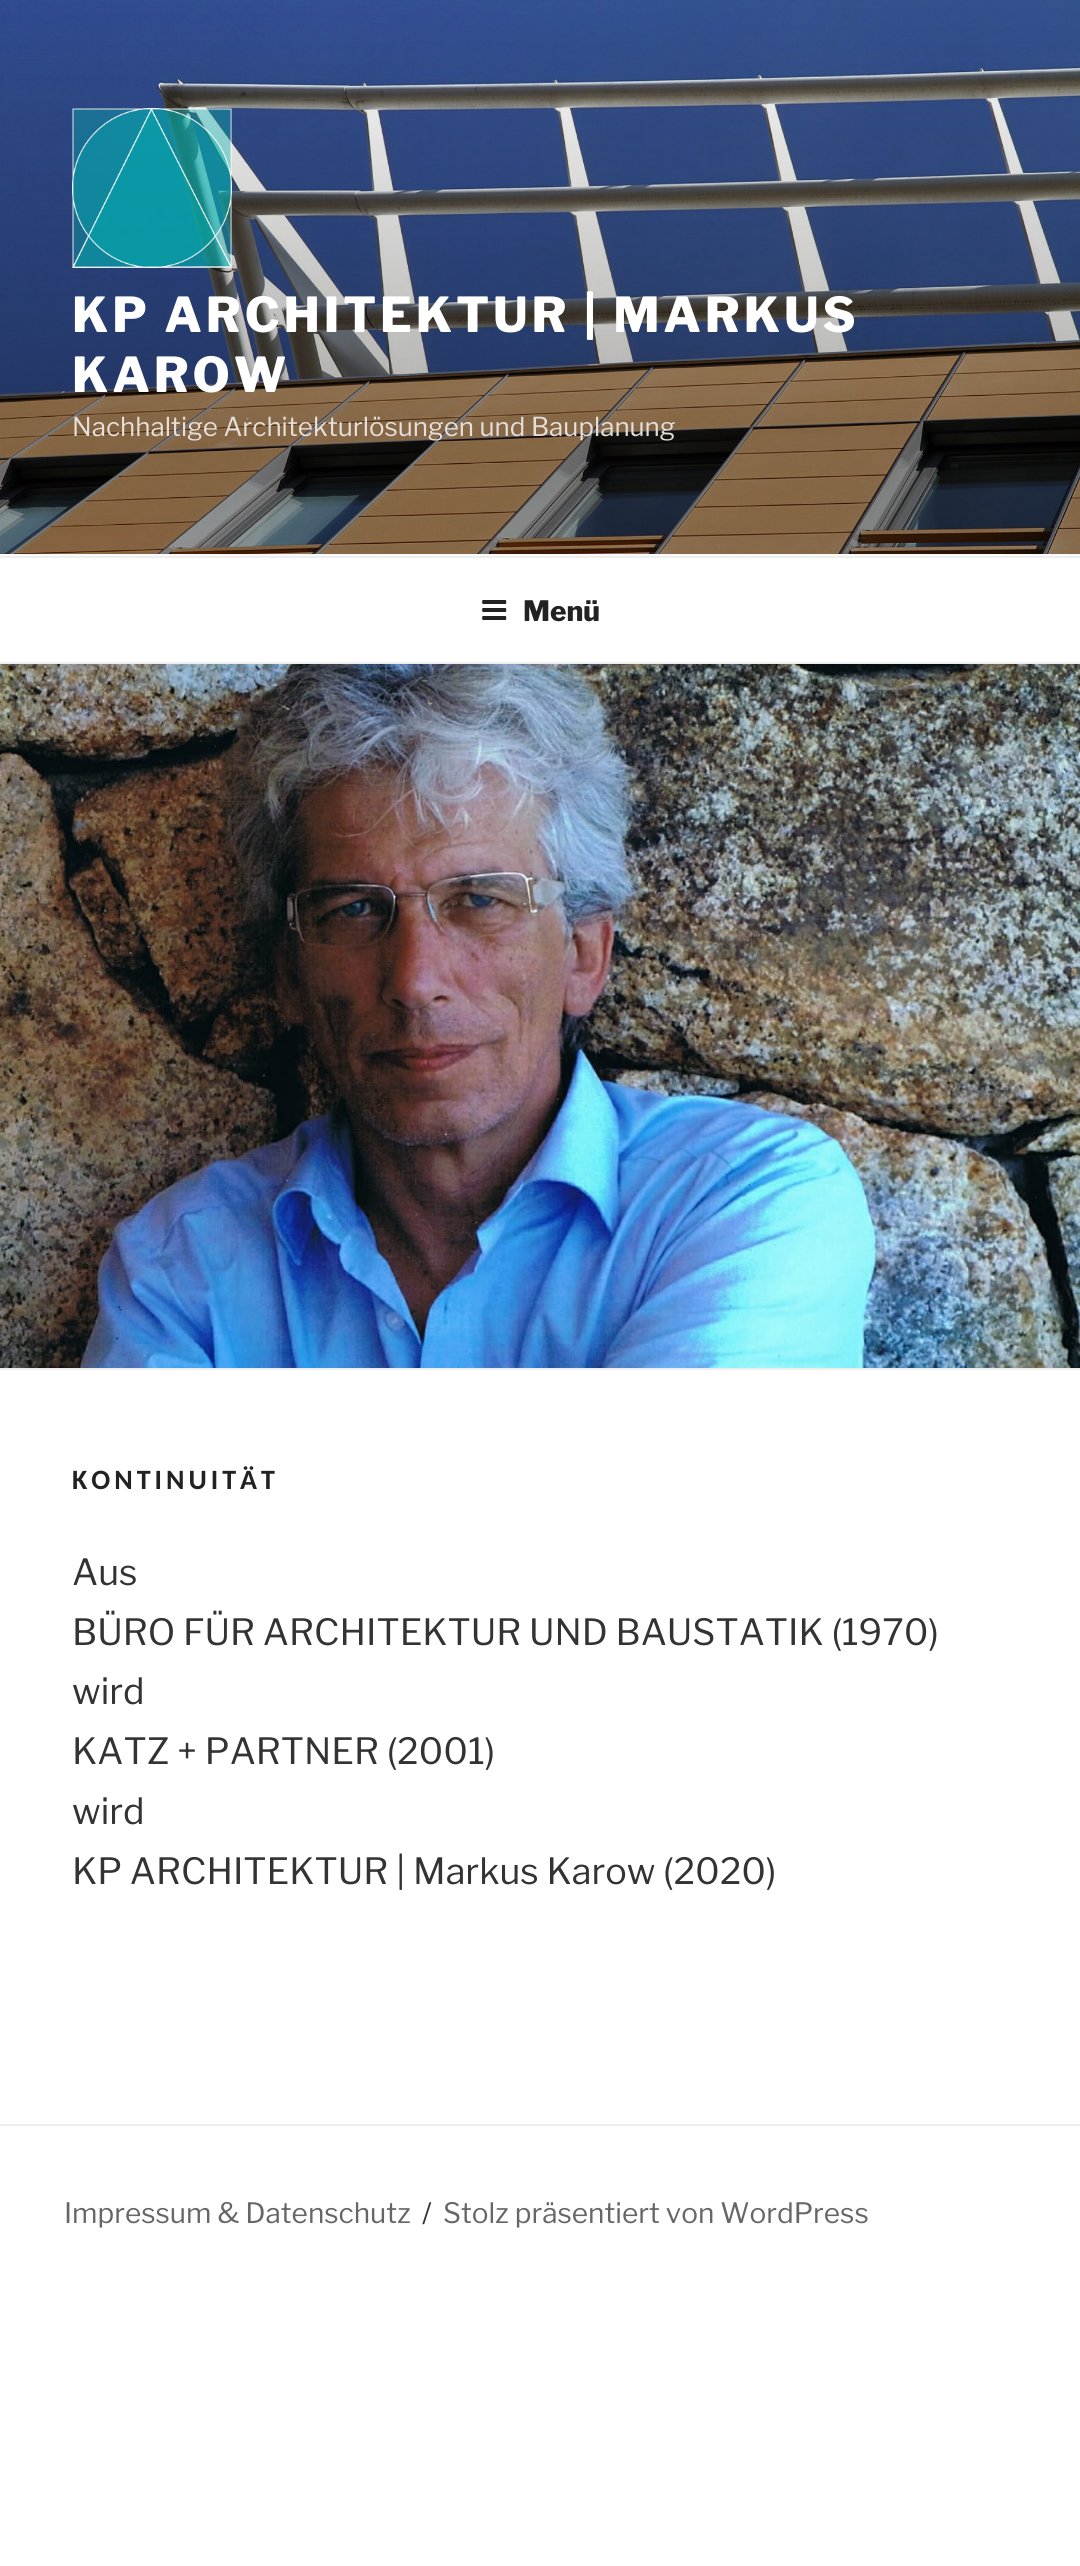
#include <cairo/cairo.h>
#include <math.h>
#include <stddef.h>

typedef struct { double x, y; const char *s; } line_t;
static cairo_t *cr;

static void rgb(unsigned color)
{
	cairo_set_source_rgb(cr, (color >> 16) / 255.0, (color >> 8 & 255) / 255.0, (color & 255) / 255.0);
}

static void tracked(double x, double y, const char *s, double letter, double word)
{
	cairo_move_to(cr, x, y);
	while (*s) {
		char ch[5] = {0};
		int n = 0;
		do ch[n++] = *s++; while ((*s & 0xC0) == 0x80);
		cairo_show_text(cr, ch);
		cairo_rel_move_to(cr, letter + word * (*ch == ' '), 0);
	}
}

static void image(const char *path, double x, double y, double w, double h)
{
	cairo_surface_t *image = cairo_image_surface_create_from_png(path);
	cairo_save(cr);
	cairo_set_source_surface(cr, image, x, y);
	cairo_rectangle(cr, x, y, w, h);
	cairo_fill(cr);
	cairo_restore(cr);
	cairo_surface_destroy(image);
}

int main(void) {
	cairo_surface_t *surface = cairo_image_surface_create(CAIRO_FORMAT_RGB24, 1080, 2566);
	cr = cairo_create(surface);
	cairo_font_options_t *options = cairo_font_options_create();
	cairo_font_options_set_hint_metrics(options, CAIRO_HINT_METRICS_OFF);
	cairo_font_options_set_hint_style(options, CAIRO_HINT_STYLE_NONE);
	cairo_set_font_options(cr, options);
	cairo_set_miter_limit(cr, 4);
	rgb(0xffffff);
	cairo_paint(cr);
	rgb(0xfafafa);
	cairo_rectangle(cr, 0, 554, 1080, 2);
	cairo_fill(cr);
	image("img/1.png", 0, 0, 1080, 554);
	image("img/2.png", 72, 108, 160, 160);
	rgb(0xeeeeee);
	cairo_rectangle(cr, 0, 556, 1080, 2);
	cairo_fill(cr);
	cairo_rectangle(cr, 0, 662, 1080, 2);
	cairo_fill(cr);
	image("img/3.png", 482, 600, 25, 20);
	cairo_rectangle(cr, 0, 1368, 1080, 2);
	cairo_fill(cr);
	image("img/4.png", 0, 664, 1080, 704);
	cairo_rectangle(cr, 0, 2124, 1080, 2);
	cairo_fill(cr);
	cairo_select_font_face(cr, "Libre Franklin Thin", CAIRO_FONT_SLANT_NORMAL, CAIRO_FONT_WEIGHT_NORMAL);
	cairo_set_font_size(cr, 48);
	rgb(0xffffff);
	tracked(72, 332, "KP ARCHITEKTUR | MARKUS", 3.8, 0);
	tracked(72, 392, "KAROW", 3.8, 0);
	cairo_select_font_face(cr, "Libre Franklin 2 Thin", CAIRO_FONT_SLANT_NORMAL, CAIRO_FONT_WEIGHT_NORMAL);
	cairo_set_font_size(cr, 26);
	rgb(0xe5dfd9);
	cairo_move_to(cr, 72, 436);
	cairo_show_text(cr, "Nachhaltige Architekturlösungen und Bauplanung");
	cairo_select_font_face(cr, "Libre Franklin Thin", CAIRO_FONT_SLANT_NORMAL, CAIRO_FONT_WEIGHT_NORMAL);
	cairo_set_font_size(cr, 28);
	rgb(0x222222);
	cairo_move_to(cr, 523, 621);
	cairo_show_text(cr, "Menü");
	cairo_select_font_face(cr, "Carlito", CAIRO_FONT_SLANT_NORMAL, CAIRO_FONT_WEIGHT_BOLD);
	tracked(72, 1489, "KONTINUITÄT", 4, 0);
	cairo_select_font_face(cr, "Libre Franklin 2 Thin", CAIRO_FONT_SLANT_NORMAL, CAIRO_FONT_WEIGHT_NORMAL);
	cairo_set_font_size(cr, 36);
	rgb(0x333333);
	{
		static const line_t items[] = {
			{72, 1585, "Aus"},
			{72, 1645, "BÜRO FÜR ARCHITEKTUR UND BAUSTATIK (1970)"},
			{72, 1704, "wird"},
			{72, 1764, "KATZ + PARTNER (2001)"},
			{72, 1824, "wird"},
			{72, 1884, "KP ARCHITEKTUR | Markus Karow (2020)"},
		};
		for (size_t i = 0; i < sizeof items / sizeof *items; i++) {
			cairo_move_to(cr, items[i].x, items[i].y);
			cairo_show_text(cr, items[i].s);
		}
	}
	cairo_set_font_size(cr, 28);
	rgb(0x666666);
	cairo_move_to(cr, 64, 2223);
	cairo_show_text(cr, "Impressum & Datenschutz");
	rgb(0x333333);
	cairo_move_to(cr, 422, 2223);
	cairo_show_text(cr, "/");
	rgb(0x666666);
	cairo_move_to(cr, 443, 2223);
	cairo_show_text(cr, "Stolz präsentiert von WordPress");
	cairo_surface_write_to_png(surface, "page.png");
	cairo_font_options_destroy(options);
	cairo_destroy(cr);
	cairo_surface_destroy(surface);
	return 0;
}
